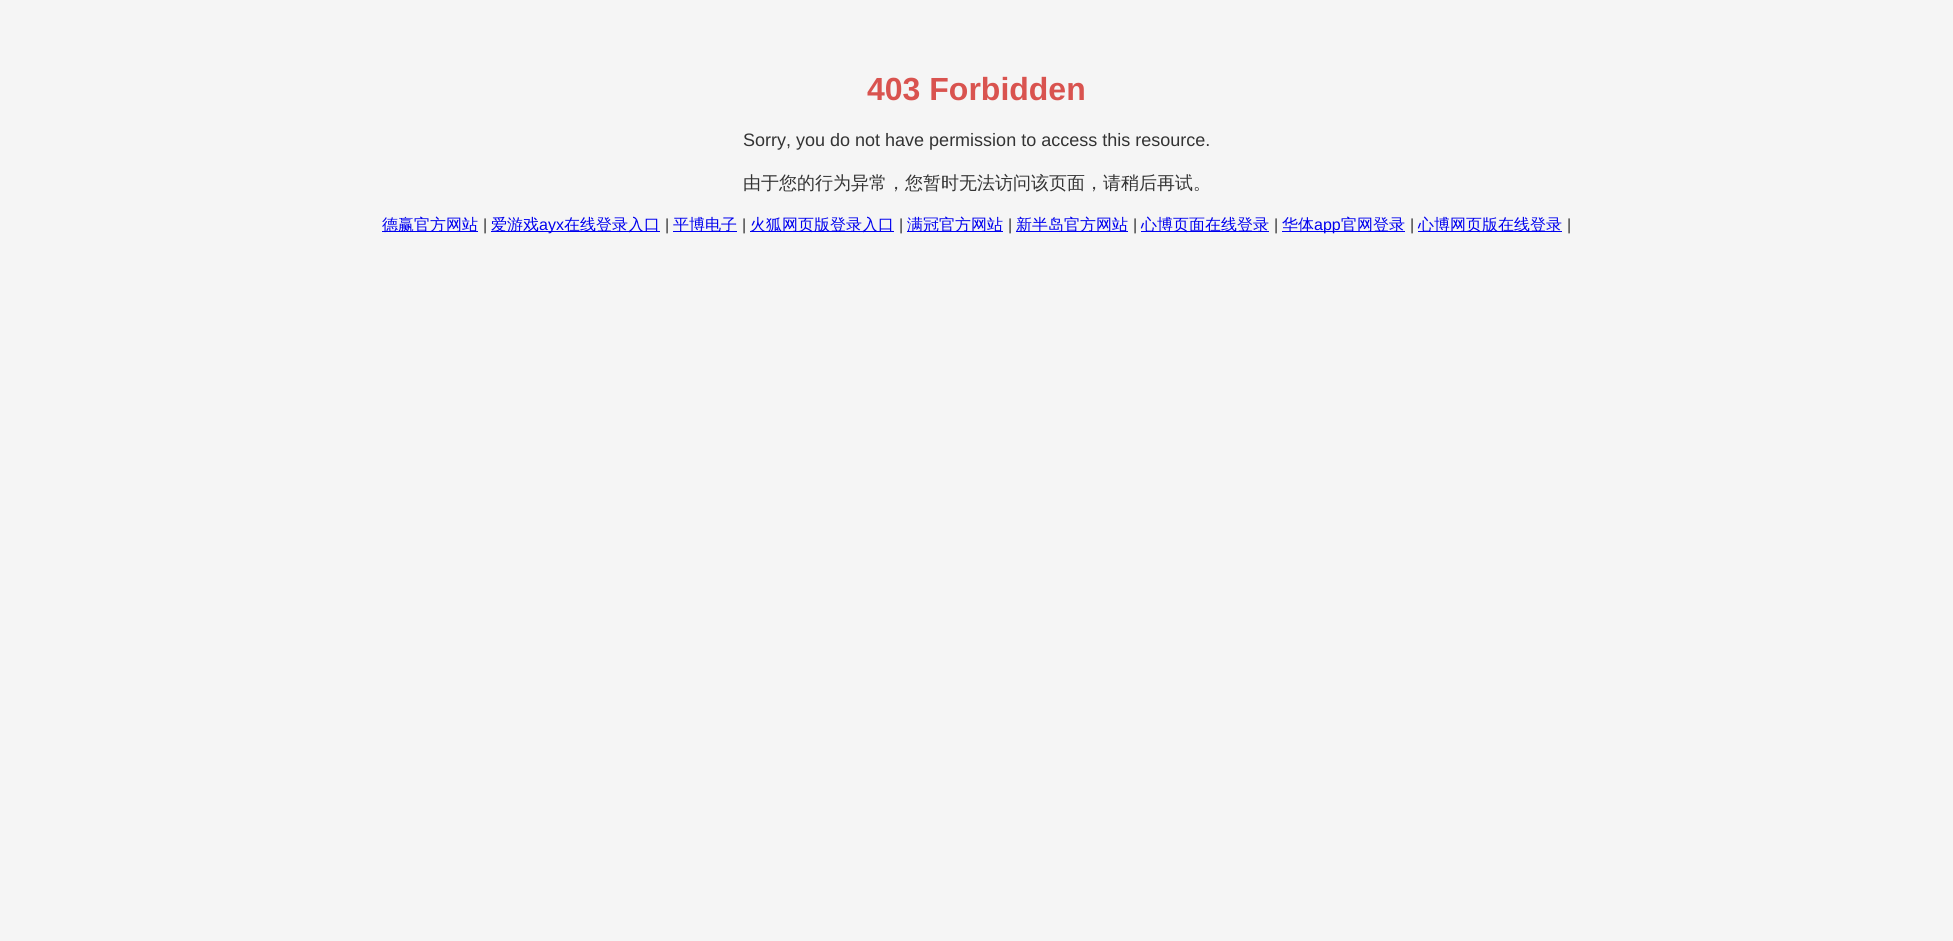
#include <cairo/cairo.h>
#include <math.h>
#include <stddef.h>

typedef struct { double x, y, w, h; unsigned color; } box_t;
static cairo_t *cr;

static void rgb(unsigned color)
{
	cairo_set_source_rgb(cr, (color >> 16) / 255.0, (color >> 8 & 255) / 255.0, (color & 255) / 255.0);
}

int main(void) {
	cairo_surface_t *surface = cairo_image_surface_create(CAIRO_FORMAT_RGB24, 1953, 941);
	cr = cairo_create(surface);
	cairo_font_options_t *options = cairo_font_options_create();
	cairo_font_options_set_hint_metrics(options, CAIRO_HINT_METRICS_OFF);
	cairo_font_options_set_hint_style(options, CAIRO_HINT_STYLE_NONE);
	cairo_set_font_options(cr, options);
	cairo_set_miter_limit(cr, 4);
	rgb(0xf5f5f5);
	cairo_paint(cr);
	{
		static const box_t items[] = {
			{382, 231, 96, 1, 0x0000ee},
			{491, 231, 169, 1, 0x0000ee},
			{673, 231, 64, 1, 0x0000ee},
			{750, 231, 144, 1, 0x0000ee},
			{907, 231, 96, 1, 0x0000ee},
			{1016, 231, 112, 1, 0x0000ee},
			{1141, 231, 128, 1, 0x0000ee},
			{1282, 231, 123, 1, 0x0000ee},
			{1418, 231, 144, 1, 0x0000ee},
		};
		for (size_t i = 0; i < sizeof items / sizeof *items; i++) {
			rgb(items[i].color);
			cairo_rectangle(cr, items[i].x, items[i].y, items[i].w, items[i].h);
			cairo_fill(cr);
		}
	}
	cairo_select_font_face(cr, "Liberation Sans", CAIRO_FONT_SLANT_NORMAL, CAIRO_FONT_WEIGHT_BOLD);
	cairo_set_font_size(cr, 32);
	rgb(0xd9534f);
	cairo_move_to(cr, 867, 100);
	cairo_show_text(cr, "403 Forbidden");
	cairo_select_font_face(cr, "Liberation Sans", CAIRO_FONT_SLANT_NORMAL, CAIRO_FONT_WEIGHT_NORMAL);
	cairo_set_font_size(cr, 18);
	rgb(0x333333);
	cairo_move_to(cr, 743, 146);
	cairo_show_text(cr, "Sorry, you do not have permission to access this resource.");
	cairo_select_font_face(cr, "WenQuanYi Zen Hei Medium", CAIRO_FONT_SLANT_NORMAL, CAIRO_FONT_WEIGHT_NORMAL);
	cairo_move_to(cr, 743, 189);
	cairo_show_text(cr, "由于您的行为异常，您暂时无法访问该页面，请稍后再试。");
	cairo_set_font_size(cr, 16);
	rgb(0x0000ee);
	cairo_move_to(cr, 382, 230);
	cairo_show_text(cr, "德赢官方网站");
	cairo_select_font_face(cr, "Liberation Sans", CAIRO_FONT_SLANT_NORMAL, CAIRO_FONT_WEIGHT_NORMAL);
	rgb(0x333333);
	cairo_move_to(cr, 483, 230);
	cairo_show_text(cr, "|");
	cairo_select_font_face(cr, "WenQuanYi Zen Hei Medium", CAIRO_FONT_SLANT_NORMAL, CAIRO_FONT_WEIGHT_NORMAL);
	rgb(0x0000ee);
	cairo_move_to(cr, 491, 230);
	cairo_show_text(cr, "爱游戏");
	cairo_select_font_face(cr, "Liberation Sans", CAIRO_FONT_SLANT_NORMAL, CAIRO_FONT_WEIGHT_NORMAL);
	cairo_move_to(cr, 539, 230);
	cairo_show_text(cr, "ayx");
	cairo_select_font_face(cr, "WenQuanYi Zen Hei Medium", CAIRO_FONT_SLANT_NORMAL, CAIRO_FONT_WEIGHT_NORMAL);
	cairo_move_to(cr, 564, 230);
	cairo_show_text(cr, "在线登录入口");
	cairo_select_font_face(cr, "Liberation Sans", CAIRO_FONT_SLANT_NORMAL, CAIRO_FONT_WEIGHT_NORMAL);
	rgb(0x333333);
	cairo_move_to(cr, 665, 230);
	cairo_show_text(cr, "|");
	cairo_select_font_face(cr, "WenQuanYi Zen Hei Medium", CAIRO_FONT_SLANT_NORMAL, CAIRO_FONT_WEIGHT_NORMAL);
	rgb(0x0000ee);
	cairo_move_to(cr, 673, 230);
	cairo_show_text(cr, "平博电子");
	cairo_select_font_face(cr, "Liberation Sans", CAIRO_FONT_SLANT_NORMAL, CAIRO_FONT_WEIGHT_NORMAL);
	rgb(0x333333);
	cairo_move_to(cr, 742, 230);
	cairo_show_text(cr, "|");
	cairo_select_font_face(cr, "WenQuanYi Zen Hei Medium", CAIRO_FONT_SLANT_NORMAL, CAIRO_FONT_WEIGHT_NORMAL);
	rgb(0x0000ee);
	cairo_move_to(cr, 750, 230);
	cairo_show_text(cr, "火狐网页版登录入口");
	cairo_select_font_face(cr, "Liberation Sans", CAIRO_FONT_SLANT_NORMAL, CAIRO_FONT_WEIGHT_NORMAL);
	rgb(0x333333);
	cairo_move_to(cr, 899, 230);
	cairo_show_text(cr, "|");
	cairo_select_font_face(cr, "WenQuanYi Zen Hei Medium", CAIRO_FONT_SLANT_NORMAL, CAIRO_FONT_WEIGHT_NORMAL);
	rgb(0x0000ee);
	cairo_move_to(cr, 907, 230);
	cairo_show_text(cr, "满冠官方网站");
	cairo_select_font_face(cr, "Liberation Sans", CAIRO_FONT_SLANT_NORMAL, CAIRO_FONT_WEIGHT_NORMAL);
	rgb(0x333333);
	cairo_move_to(cr, 1008, 230);
	cairo_show_text(cr, "|");
	cairo_select_font_face(cr, "WenQuanYi Zen Hei Medium", CAIRO_FONT_SLANT_NORMAL, CAIRO_FONT_WEIGHT_NORMAL);
	rgb(0x0000ee);
	cairo_move_to(cr, 1016, 230);
	cairo_show_text(cr, "新半岛官方网站");
	cairo_select_font_face(cr, "Liberation Sans", CAIRO_FONT_SLANT_NORMAL, CAIRO_FONT_WEIGHT_NORMAL);
	rgb(0x333333);
	cairo_move_to(cr, 1133, 230);
	cairo_show_text(cr, "|");
	cairo_select_font_face(cr, "WenQuanYi Zen Hei Medium", CAIRO_FONT_SLANT_NORMAL, CAIRO_FONT_WEIGHT_NORMAL);
	rgb(0x0000ee);
	cairo_move_to(cr, 1141, 230);
	cairo_show_text(cr, "心博页面在线登录");
	cairo_select_font_face(cr, "Liberation Sans", CAIRO_FONT_SLANT_NORMAL, CAIRO_FONT_WEIGHT_NORMAL);
	rgb(0x333333);
	cairo_move_to(cr, 1274, 230);
	cairo_show_text(cr, "|");
	cairo_select_font_face(cr, "WenQuanYi Zen Hei Medium", CAIRO_FONT_SLANT_NORMAL, CAIRO_FONT_WEIGHT_NORMAL);
	rgb(0x0000ee);
	cairo_move_to(cr, 1282, 230);
	cairo_show_text(cr, "华体");
	cairo_select_font_face(cr, "Liberation Sans", CAIRO_FONT_SLANT_NORMAL, CAIRO_FONT_WEIGHT_NORMAL);
	cairo_move_to(cr, 1314, 230);
	cairo_show_text(cr, "app");
	cairo_select_font_face(cr, "WenQuanYi Zen Hei Medium", CAIRO_FONT_SLANT_NORMAL, CAIRO_FONT_WEIGHT_NORMAL);
	cairo_move_to(cr, 1341, 230);
	cairo_show_text(cr, "官网登录");
	cairo_select_font_face(cr, "Liberation Sans", CAIRO_FONT_SLANT_NORMAL, CAIRO_FONT_WEIGHT_NORMAL);
	rgb(0x333333);
	cairo_move_to(cr, 1410, 230);
	cairo_show_text(cr, "|");
	cairo_select_font_face(cr, "WenQuanYi Zen Hei Medium", CAIRO_FONT_SLANT_NORMAL, CAIRO_FONT_WEIGHT_NORMAL);
	rgb(0x0000ee);
	cairo_move_to(cr, 1418, 230);
	cairo_show_text(cr, "心博网页版在线登录");
	cairo_select_font_face(cr, "Liberation Sans", CAIRO_FONT_SLANT_NORMAL, CAIRO_FONT_WEIGHT_NORMAL);
	rgb(0x333333);
	cairo_move_to(cr, 1567, 230);
	cairo_show_text(cr, "|");
	cairo_surface_write_to_png(surface, "page.png");
	cairo_font_options_destroy(options);
	cairo_destroy(cr);
	cairo_surface_destroy(surface);
	return 0;
}
